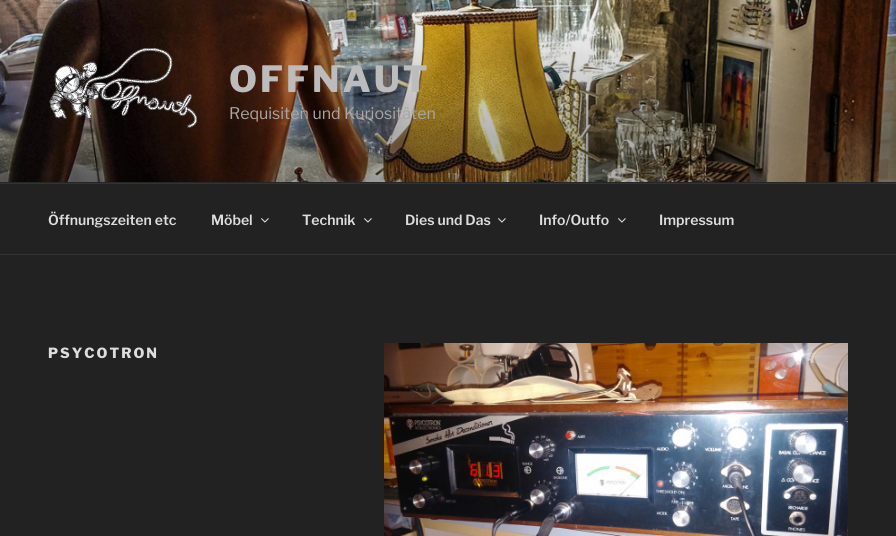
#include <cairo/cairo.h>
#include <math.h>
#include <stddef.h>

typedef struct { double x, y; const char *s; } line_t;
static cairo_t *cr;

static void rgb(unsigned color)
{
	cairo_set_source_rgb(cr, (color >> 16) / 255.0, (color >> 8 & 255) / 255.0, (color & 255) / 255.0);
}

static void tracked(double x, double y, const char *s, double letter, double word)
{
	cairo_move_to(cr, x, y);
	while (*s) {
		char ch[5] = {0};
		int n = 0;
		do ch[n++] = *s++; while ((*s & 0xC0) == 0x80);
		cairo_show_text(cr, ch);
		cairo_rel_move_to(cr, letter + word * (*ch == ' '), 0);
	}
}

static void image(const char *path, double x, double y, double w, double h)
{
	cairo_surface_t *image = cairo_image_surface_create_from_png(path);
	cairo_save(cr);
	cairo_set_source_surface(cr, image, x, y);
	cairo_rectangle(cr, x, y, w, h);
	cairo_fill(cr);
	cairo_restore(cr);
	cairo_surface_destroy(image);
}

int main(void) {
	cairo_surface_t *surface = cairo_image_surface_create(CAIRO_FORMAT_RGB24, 896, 536);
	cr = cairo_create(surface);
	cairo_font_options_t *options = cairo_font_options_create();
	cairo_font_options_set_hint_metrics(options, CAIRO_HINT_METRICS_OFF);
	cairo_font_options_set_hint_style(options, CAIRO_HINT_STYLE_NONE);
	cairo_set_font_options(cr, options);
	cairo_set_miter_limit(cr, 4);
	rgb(0x222222);
	cairo_paint(cr);
	rgb(0x262626);
	cairo_rectangle(cr, 0, 182, 896, 1);
	cairo_fill(cr);
	image("img/1.png", 0, 0, 896, 182);
	image("img/2.png", 49, 48, 148, 80);
	rgb(0x333333);
	cairo_rectangle(cr, 0, 183, 896, 1);
	cairo_fill(cr);
	cairo_rectangle(cr, 0, 254, 896, 1);
	cairo_fill(cr);
	image("img/3.png", 261, 218, 8, 5);
	image("img/3.png", 364, 218, 8, 5);
	image("img/3.png", 498, 218, 8, 5);
	image("img/3.png", 618, 218, 8, 5);
	image("img/4.png", 384, 343, 464, 193);
	cairo_select_font_face(cr, "Libre Franklin Thin", CAIRO_FONT_SLANT_NORMAL, CAIRO_FONT_WEIGHT_NORMAL);
	cairo_set_font_size(cr, 36);
	rgb(0xbcbcbc);
	tracked(229, 92, "OFFNAUT", 3, 0);
	cairo_select_font_face(cr, "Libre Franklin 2 Thin", CAIRO_FONT_SLANT_NORMAL, CAIRO_FONT_WEIGHT_NORMAL);
	cairo_set_font_size(cr, 16);
	rgb(0xa8a5a2);
	cairo_move_to(cr, 229, 119);
	cairo_show_text(cr, "Requisiten und Kuriositäten");
	cairo_select_font_face(cr, "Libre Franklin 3 Thin", CAIRO_FONT_SLANT_NORMAL, CAIRO_FONT_WEIGHT_NORMAL);
	cairo_set_font_size(cr, 14);
	rgb(0xdddddd);
	{
		static const line_t items[] = {
			{48, 225, "Öffnungszeiten etc"},
			{211, 225, "Möbel"},
			{302, 225, "Technik"},
			{405, 225, "Dies und Das"},
			{539, 225, "Info/Outfo"},
			{659, 225, "Impressum"},
		};
		for (size_t i = 0; i < sizeof items / sizeof *items; i++) {
			cairo_move_to(cr, items[i].x, items[i].y);
			cairo_show_text(cr, items[i].s);
		}
	}
	cairo_select_font_face(cr, "Libre Franklin Thin", CAIRO_FONT_SLANT_NORMAL, CAIRO_FONT_WEIGHT_NORMAL);
	tracked(48, 358, "PSYCOTRON", 2, 0);
	cairo_surface_write_to_png(surface, "page.png");
	cairo_font_options_destroy(options);
	cairo_destroy(cr);
	cairo_surface_destroy(surface);
	return 0;
}
